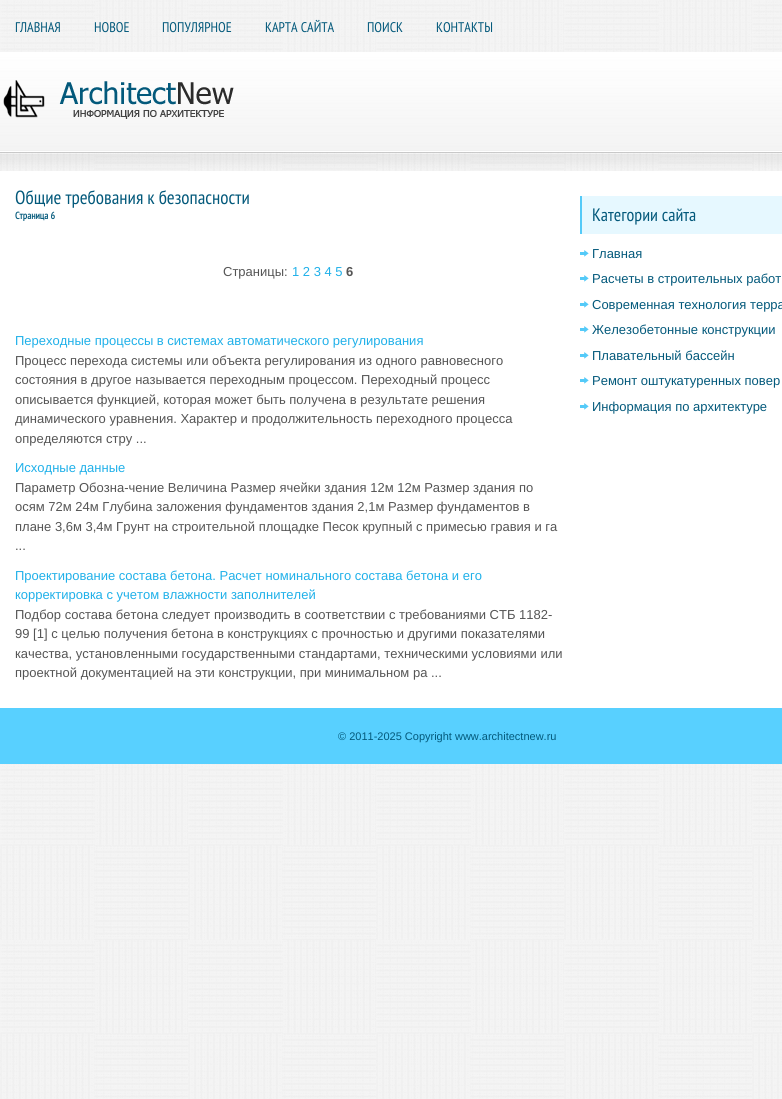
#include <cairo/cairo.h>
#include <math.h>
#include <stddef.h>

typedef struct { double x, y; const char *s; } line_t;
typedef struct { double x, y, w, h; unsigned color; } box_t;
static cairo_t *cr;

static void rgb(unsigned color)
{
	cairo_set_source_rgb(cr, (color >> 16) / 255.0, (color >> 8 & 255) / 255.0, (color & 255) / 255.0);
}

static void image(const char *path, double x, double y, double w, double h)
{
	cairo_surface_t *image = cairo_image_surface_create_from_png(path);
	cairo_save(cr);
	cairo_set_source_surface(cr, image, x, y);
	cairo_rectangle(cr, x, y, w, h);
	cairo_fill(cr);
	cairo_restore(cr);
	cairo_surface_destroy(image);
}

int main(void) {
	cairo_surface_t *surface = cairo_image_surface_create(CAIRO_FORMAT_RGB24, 782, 1099);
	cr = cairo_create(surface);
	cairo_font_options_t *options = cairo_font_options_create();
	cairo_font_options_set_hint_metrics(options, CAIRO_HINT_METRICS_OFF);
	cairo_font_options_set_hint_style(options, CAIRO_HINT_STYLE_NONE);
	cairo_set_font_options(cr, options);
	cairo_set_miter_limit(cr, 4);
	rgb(0xffffff);
	cairo_paint(cr);
	image("img/1.png", 0, 0, 782, 1099);
	image("img/2.png", 3, 80, 231, 39);
	{
		static const box_t items[] = {
			{0, 171, 782, 537, 0xffffff},
			{582, 196, 200, 38, 0xe6f8ff},
			{580, 196, 2, 38, 0x54caf8},
		};
		for (size_t i = 0; i < sizeof items / sizeof *items; i++) {
			rgb(items[i].color);
			cairo_rectangle(cr, items[i].x, items[i].y, items[i].w, items[i].h);
			cairo_fill(cr);
		}
	}
	image("img/3.png", 580, 250, 9, 7);
	image("img/3.png", 580, 275, 9, 7);
	image("img/3.png", 580, 301, 9, 7);
	image("img/3.png", 580, 326, 9, 7);
	image("img/3.png", 580, 352, 9, 7);
	image("img/3.png", 580, 377, 9, 7);
	image("img/3.png", 580, 403, 9, 7);
	rgb(0x58d0ff);
	cairo_rectangle(cr, 0, 708, 782, 56);
	cairo_fill(cr);
	cairo_select_font_face(cr, "PT Sans Narrow", CAIRO_FONT_SLANT_NORMAL, CAIRO_FONT_WEIGHT_NORMAL);
	cairo_set_font_size(cr, 14);
	rgb(0x03597b);
	{
		static const line_t items[] = {
			{15, 32, "ГЛАВНАЯ"},
			{94, 32, "НОВОЕ"},
			{162, 32, "ПОПУЛЯРНОЕ"},
			{265, 32, "КАРТА САЙТА"},
			{367, 32, "ПОИСК"},
			{436, 32, "КОНТАКТЫ"},
		};
		for (size_t i = 0; i < sizeof items / sizeof *items; i++) {
			cairo_move_to(cr, items[i].x, items[i].y);
			cairo_show_text(cr, items[i].s);
		}
	}
	cairo_set_font_size(cr, 19);
	cairo_move_to(cr, 15, 204);
	cairo_show_text(cr, "Общие требования к безопасности");
	cairo_select_font_face(cr, "PT Sans Narrow", CAIRO_FONT_SLANT_NORMAL, CAIRO_FONT_WEIGHT_BOLD);
	cairo_set_font_size(cr, 10);
	cairo_move_to(cr, 15, 219);
	cairo_show_text(cr, "Страница 6");
	cairo_select_font_face(cr, "Liberation Sans", CAIRO_FONT_SLANT_NORMAL, CAIRO_FONT_WEIGHT_NORMAL);
	cairo_set_font_size(cr, 13);
	rgb(0x555555);
	cairo_move_to(cr, 223, 276);
	cairo_show_text(cr, "Страницы:");
	rgb(0x1fb0e9);
	cairo_move_to(cr, 292, 276);
	cairo_show_text(cr, "1 2 3 4 5");
	cairo_select_font_face(cr, "Liberation Sans", CAIRO_FONT_SLANT_NORMAL, CAIRO_FONT_WEIGHT_BOLD);
	rgb(0x555555);
	cairo_move_to(cr, 346, 276);
	cairo_show_text(cr, "6");
	cairo_select_font_face(cr, "Liberation Sans", CAIRO_FONT_SLANT_NORMAL, CAIRO_FONT_WEIGHT_NORMAL);
	rgb(0x1fb0e9);
	cairo_move_to(cr, 15, 345);
	cairo_show_text(cr, "Переходные процессы в системах автоматического регулирования");
	rgb(0x555555);
	{
		static const line_t items[] = {
			{15, 365, "Процесс перехода системы или объекта регулирования из одного равновесного"},
			{15, 384, "состояния в другое называется переходным процессом. Переходный процесс"},
			{15, 404, "описывается функцией, которая может быть получена в результате решения"},
			{15, 423, "динамического уравнения. Характер и продолжительность переходного процесса"},
			{15, 443, "определяются стру ..."},
		};
		for (size_t i = 0; i < sizeof items / sizeof *items; i++) {
			cairo_move_to(cr, items[i].x, items[i].y);
			cairo_show_text(cr, items[i].s);
		}
	}
	rgb(0x1fb0e9);
	cairo_move_to(cr, 15, 472);
	cairo_show_text(cr, "Исходные данные");
	rgb(0x555555);
	{
		static const line_t items[] = {
			{15, 492, "Параметр Обозна-чение Величина Размер ячейки здания 12м 12м Размер здания по"},
			{15, 511, "осям 72м 24м Глубина заложения фундаментов здания 2,1м Размер фундаментов в"},
			{15, 531, "плане 3,6м 3,4м Грунт на строительной площадке Песок крупный с примесью гравия и га"},
			{15, 550, "..."},
		};
		for (size_t i = 0; i < sizeof items / sizeof *items; i++) {
			cairo_move_to(cr, items[i].x, items[i].y);
			cairo_show_text(cr, items[i].s);
		}
	}
	rgb(0x1fb0e9);
	cairo_move_to(cr, 15, 580);
	cairo_show_text(cr, "Проектирование состава бетона. Расчет номинального состава бетона и его");
	cairo_move_to(cr, 15, 599);
	cairo_show_text(cr, "корректировка с учетом влажности заполнителей");
	rgb(0x555555);
	{
		static const line_t items[] = {
			{15, 619, "Подбор состава бетона следует производить в соответствии с требованиями СТБ 1182-"},
			{15, 638, "99 [1] с целью получения бетона в конструкциях с прочностью и другими показателями"},
			{15, 658, "качества, установленными государственными стандартами, техническими условиями или"},
			{15, 677, "проектной документацией на эти конструкции, при минимальном ра ..."},
		};
		for (size_t i = 0; i < sizeof items / sizeof *items; i++) {
			cairo_move_to(cr, items[i].x, items[i].y);
			cairo_show_text(cr, items[i].s);
		}
	}
	cairo_select_font_face(cr, "PT Sans Narrow", CAIRO_FONT_SLANT_NORMAL, CAIRO_FONT_WEIGHT_NORMAL);
	cairo_set_font_size(cr, 18);
	rgb(0x03597b);
	cairo_move_to(cr, 592, 221);
	cairo_show_text(cr, "Категории сайта");
	cairo_select_font_face(cr, "Liberation Sans", CAIRO_FONT_SLANT_NORMAL, CAIRO_FONT_WEIGHT_NORMAL);
	cairo_set_font_size(cr, 13);
	{
		static const line_t items[] = {
			{592, 258, "Главная"},
			{592, 283, "Расчеты в строительных работ"},
			{592, 309, "Современная технология терра"},
			{592, 334, "Железобетонные конструкции"},
			{592, 360, "Плавательный бассейн"},
			{592, 385, "Ремонт оштукатуренных повер"},
			{592, 411, "Информация по архитектуре"},
		};
		for (size_t i = 0; i < sizeof items / sizeof *items; i++) {
			cairo_move_to(cr, items[i].x, items[i].y);
			cairo_show_text(cr, items[i].s);
		}
	}
	cairo_set_font_size(cr, 11);
	cairo_move_to(cr, 338, 740);
	cairo_show_text(cr, "© 2011-2025 Copyright www.architectnew.ru");
	cairo_surface_write_to_png(surface, "page.png");
	cairo_font_options_destroy(options);
	cairo_destroy(cr);
	cairo_surface_destroy(surface);
	return 0;
}
